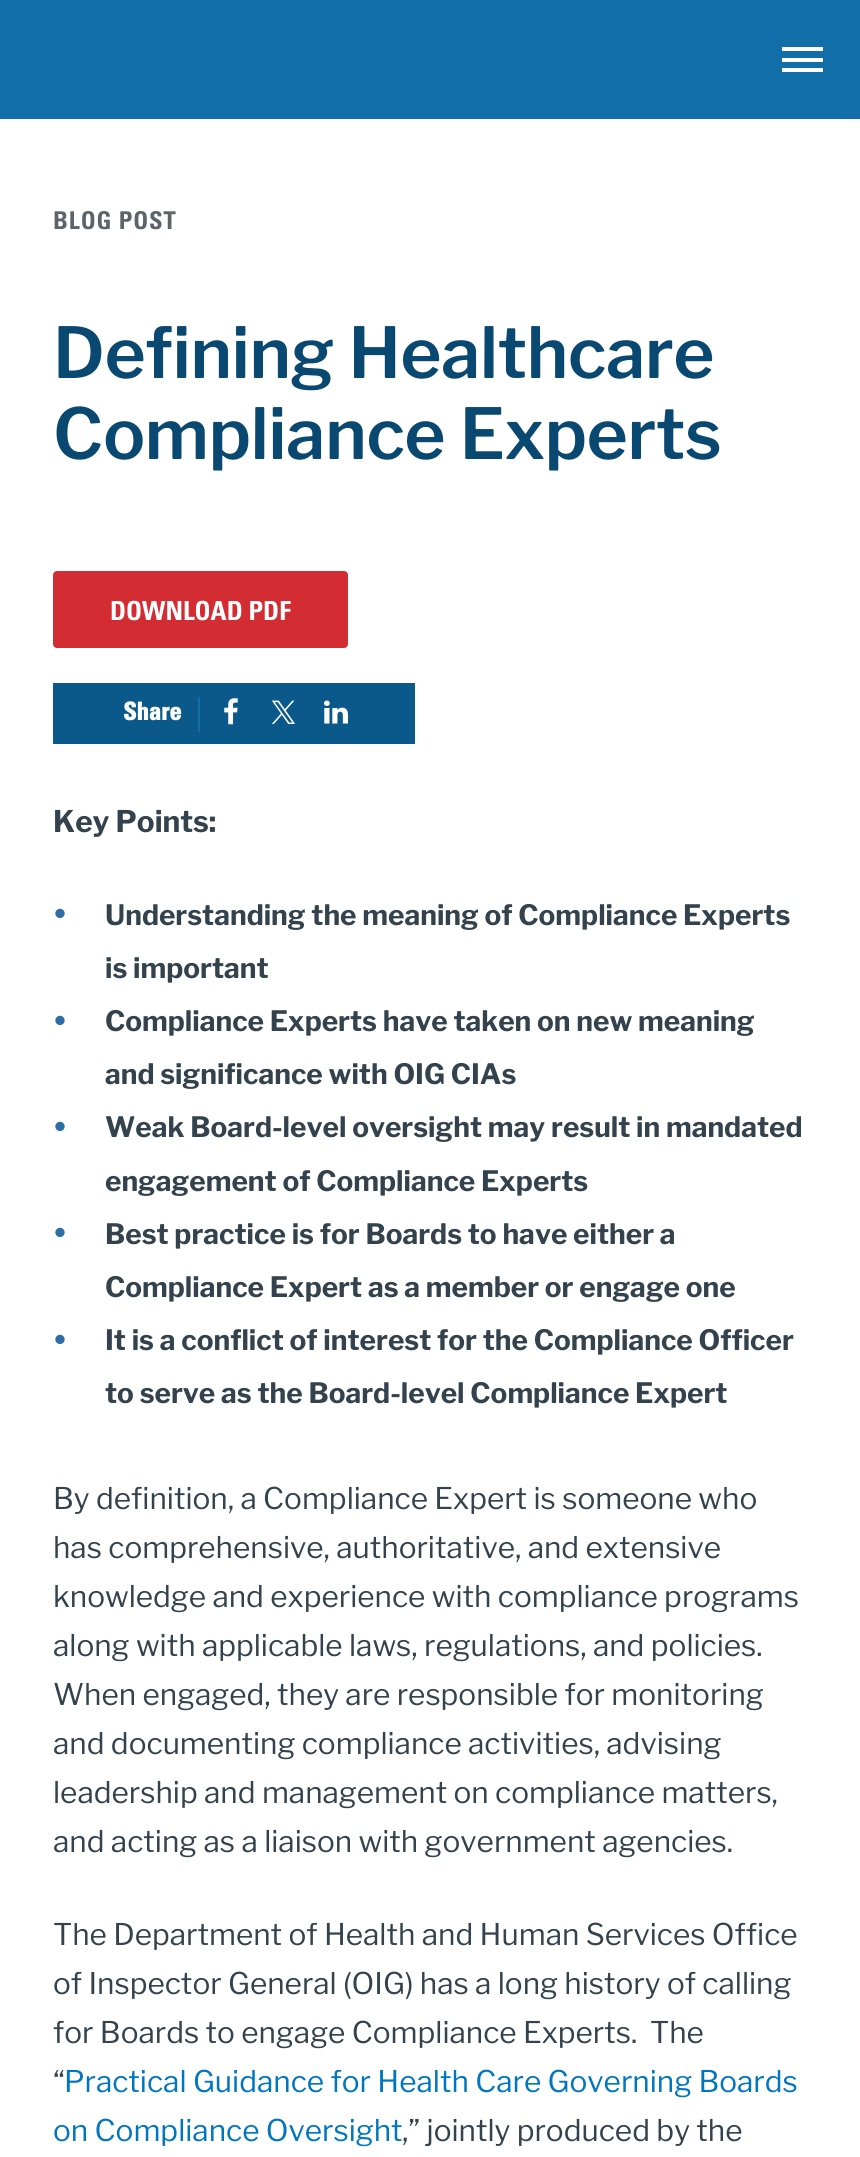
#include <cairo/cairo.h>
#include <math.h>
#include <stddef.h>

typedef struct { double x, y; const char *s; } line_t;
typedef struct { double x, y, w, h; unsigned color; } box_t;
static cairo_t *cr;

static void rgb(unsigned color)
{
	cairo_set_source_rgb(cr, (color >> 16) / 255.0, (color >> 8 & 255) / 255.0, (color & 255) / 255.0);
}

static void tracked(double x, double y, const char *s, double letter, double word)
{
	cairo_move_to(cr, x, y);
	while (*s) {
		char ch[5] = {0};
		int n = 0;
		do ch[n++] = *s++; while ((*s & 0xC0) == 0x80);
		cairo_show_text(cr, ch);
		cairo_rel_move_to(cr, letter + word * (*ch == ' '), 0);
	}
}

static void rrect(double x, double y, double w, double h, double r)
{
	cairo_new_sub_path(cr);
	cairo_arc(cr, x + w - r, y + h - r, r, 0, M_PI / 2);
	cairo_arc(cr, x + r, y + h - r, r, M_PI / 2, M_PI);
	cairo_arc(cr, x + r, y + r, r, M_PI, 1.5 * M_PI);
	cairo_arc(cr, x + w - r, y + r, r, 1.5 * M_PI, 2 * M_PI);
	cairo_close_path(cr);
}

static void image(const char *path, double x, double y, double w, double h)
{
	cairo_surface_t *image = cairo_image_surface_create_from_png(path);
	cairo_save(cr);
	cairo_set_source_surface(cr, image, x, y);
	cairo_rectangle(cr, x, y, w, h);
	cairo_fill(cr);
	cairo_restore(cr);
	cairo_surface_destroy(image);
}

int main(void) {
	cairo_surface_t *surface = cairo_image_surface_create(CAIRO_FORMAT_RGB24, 860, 2157);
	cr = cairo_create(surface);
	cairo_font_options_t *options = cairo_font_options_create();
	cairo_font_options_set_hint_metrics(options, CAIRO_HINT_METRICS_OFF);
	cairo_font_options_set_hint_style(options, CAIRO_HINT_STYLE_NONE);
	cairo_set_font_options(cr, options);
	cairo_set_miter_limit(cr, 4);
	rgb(0xffffff);
	cairo_paint(cr);
	{
		static const box_t items[] = {
			{0, 0, 860, 119, 0x116ea9},
			{782, 58, 41, 4, 0xffffff},
			{782, 47, 41, 4, 0xffffff},
			{782, 68, 41, 4, 0xffffff},
		};
		for (size_t i = 0; i < sizeof items / sizeof *items; i++) {
			rgb(items[i].color);
			cairo_rectangle(cr, items[i].x, items[i].y, items[i].w, items[i].h);
			cairo_fill(cr);
		}
	}
	rgb(0xd32d33);
	rrect(55, 573, 291, 73, 2);
	cairo_fill_preserve(cr);
	cairo_set_line_width(cr, 4);
	cairo_stroke(cr);
	rgb(0x0b598b);
	cairo_rectangle(cr, 53, 683, 362, 61);
	cairo_fill(cr);
	rgb(0x116ea9);
	cairo_rectangle(cr, 198, 697, 2, 35);
	cairo_fill(cr);
	image("img/1.png", 224, 698, 14, 27);
	image("img/2.png", 272, 700, 23, 24);
	image("img/3.png", 324, 700, 24, 24);
	cairo_select_font_face(cr, "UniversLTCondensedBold", CAIRO_FONT_SLANT_NORMAL, CAIRO_FONT_WEIGHT_NORMAL);
	cairo_set_font_size(cr, 24.5);
	rgb(0x5b6469);
	tracked(53, 229, "BLOG POST", 0.9, 0);
	cairo_select_font_face(cr, "Libre Franklin SemiBold", CAIRO_FONT_SLANT_NORMAL, CAIRO_FONT_WEIGHT_NORMAL);
	cairo_set_font_size(cr, 70);
	rgb(0x094870);
	tracked(53, 378, "Defining Healthcare", -0.2, 0);
	tracked(53, 459, "Compliance Experts", -0.2, 0);
	cairo_select_font_face(cr, "UniversLTCondensedBold", CAIRO_FONT_SLANT_NORMAL, CAIRO_FONT_WEIGHT_NORMAL);
	cairo_set_font_size(cr, 26.25);
	rgb(0xffffff);
	cairo_move_to(cr, 110, 620);
	cairo_show_text(cr, "DOWNLOAD PDF");
	cairo_select_font_face(cr, "UniversLTCondensedBold", CAIRO_FONT_SLANT_NORMAL, CAIRO_FONT_WEIGHT_BOLD);
	cairo_set_font_size(cr, 24.5);
	cairo_move_to(cr, 123, 720);
	cairo_show_text(cr, "Share");
	cairo_select_font_face(cr, "Libre Franklin", CAIRO_FONT_SLANT_NORMAL, CAIRO_FONT_WEIGHT_BOLD);
	cairo_set_font_size(cr, 29.75);
	rgb(0x33424c);
	cairo_move_to(cr, 53, 832);
	cairo_show_text(cr, "Key Points:");
	cairo_select_font_face(cr, "Libre Franklin Medium", CAIRO_FONT_SLANT_NORMAL, CAIRO_FONT_WEIGHT_NORMAL);
	cairo_set_font_size(cr, 44);
	rgb(0x2f6ea4);
	cairo_move_to(cr, 53, 930);
	cairo_show_text(cr, "•");
	cairo_select_font_face(cr, "Libre Franklin", CAIRO_FONT_SLANT_NORMAL, CAIRO_FONT_WEIGHT_BOLD);
	cairo_set_font_size(cr, 28);
	rgb(0x33424c);
	cairo_move_to(cr, 105, 925);
	cairo_show_text(cr, "Understanding the meaning of Compliance Experts");
	cairo_move_to(cr, 105, 978);
	cairo_show_text(cr, "is important");
	cairo_select_font_face(cr, "Libre Franklin Medium", CAIRO_FONT_SLANT_NORMAL, CAIRO_FONT_WEIGHT_NORMAL);
	cairo_set_font_size(cr, 44);
	rgb(0x2f6ea4);
	cairo_move_to(cr, 53, 1037);
	cairo_show_text(cr, "•");
	cairo_select_font_face(cr, "Libre Franklin", CAIRO_FONT_SLANT_NORMAL, CAIRO_FONT_WEIGHT_BOLD);
	cairo_set_font_size(cr, 28);
	rgb(0x33424c);
	cairo_move_to(cr, 105, 1031);
	cairo_show_text(cr, "Compliance Experts have taken on new meaning");
	cairo_move_to(cr, 105, 1084);
	cairo_show_text(cr, "and significance with OIG CIAs");
	cairo_select_font_face(cr, "Libre Franklin Medium", CAIRO_FONT_SLANT_NORMAL, CAIRO_FONT_WEIGHT_NORMAL);
	cairo_set_font_size(cr, 44);
	rgb(0x2f6ea4);
	cairo_move_to(cr, 53, 1143);
	cairo_show_text(cr, "•");
	cairo_select_font_face(cr, "Libre Franklin", CAIRO_FONT_SLANT_NORMAL, CAIRO_FONT_WEIGHT_BOLD);
	cairo_set_font_size(cr, 28);
	rgb(0x33424c);
	cairo_move_to(cr, 105, 1137);
	cairo_show_text(cr, "Weak Board-level oversight may result in mandated");
	cairo_move_to(cr, 105, 1191);
	cairo_show_text(cr, "engagement of Compliance Experts");
	cairo_select_font_face(cr, "Libre Franklin Medium", CAIRO_FONT_SLANT_NORMAL, CAIRO_FONT_WEIGHT_NORMAL);
	cairo_set_font_size(cr, 44);
	rgb(0x2f6ea4);
	cairo_move_to(cr, 53, 1249);
	cairo_show_text(cr, "•");
	cairo_select_font_face(cr, "Libre Franklin", CAIRO_FONT_SLANT_NORMAL, CAIRO_FONT_WEIGHT_BOLD);
	cairo_set_font_size(cr, 28);
	rgb(0x33424c);
	cairo_move_to(cr, 105, 1244);
	cairo_show_text(cr, "Best practice is for Boards to have either a");
	cairo_move_to(cr, 105, 1297);
	cairo_show_text(cr, "Compliance Expert as a member or engage one");
	cairo_select_font_face(cr, "Libre Franklin Medium", CAIRO_FONT_SLANT_NORMAL, CAIRO_FONT_WEIGHT_NORMAL);
	cairo_set_font_size(cr, 44);
	rgb(0x2f6ea4);
	cairo_move_to(cr, 53, 1356);
	cairo_show_text(cr, "•");
	cairo_select_font_face(cr, "Libre Franklin", CAIRO_FONT_SLANT_NORMAL, CAIRO_FONT_WEIGHT_BOLD);
	cairo_set_font_size(cr, 28);
	rgb(0x33424c);
	cairo_move_to(cr, 105, 1350);
	cairo_show_text(cr, "It is a conflict of interest for the Compliance Officer");
	cairo_move_to(cr, 105, 1403);
	cairo_show_text(cr, "to serve as the Board-level Compliance Expert");
	cairo_select_font_face(cr, "Libre Franklin", CAIRO_FONT_SLANT_NORMAL, CAIRO_FONT_WEIGHT_NORMAL);
	cairo_set_font_size(cr, 29.75);
	{
		static const line_t items[] = {
			{53, 1509, "By definition, a Compliance Expert is someone who"},
			{53, 1558, "has comprehensive, authoritative, and extensive"},
			{53, 1607, "knowledge and experience with compliance programs"},
			{53, 1656, "along with applicable laws, regulations, and policies."},
			{53, 1705, "When engaged, they are responsible for monitoring"},
			{53, 1754, "and documenting compliance activities, advising"},
			{53, 1803, "leadership and management on compliance matters,"},
			{53, 1852, "and acting as a liaison with government agencies."},
			{53, 1945, "The Department of Health and Human Services Office"},
			{53, 1994, "of Inspector General (OIG) has a long history of calling"},
			{53, 2043, "for Boards to engage Compliance Experts.  The"},
			{53, 2092, "“"},
		};
		for (size_t i = 0; i < sizeof items / sizeof *items; i++) {
			cairo_move_to(cr, items[i].x, items[i].y);
			cairo_show_text(cr, items[i].s);
		}
	}
	rgb(0x0076c0);
	cairo_move_to(cr, 64, 2092);
	cairo_show_text(cr, "Practical Guidance for Health Care Governing Boards");
	cairo_move_to(cr, 53, 2141);
	cairo_show_text(cr, "on Compliance Oversight");
	rgb(0x33424c);
	cairo_move_to(cr, 402, 2141);
	cairo_show_text(cr, ",” jointly produced by the");
	cairo_surface_write_to_png(surface, "page.png");
	cairo_font_options_destroy(options);
	cairo_destroy(cr);
	cairo_surface_destroy(surface);
	return 0;
}
